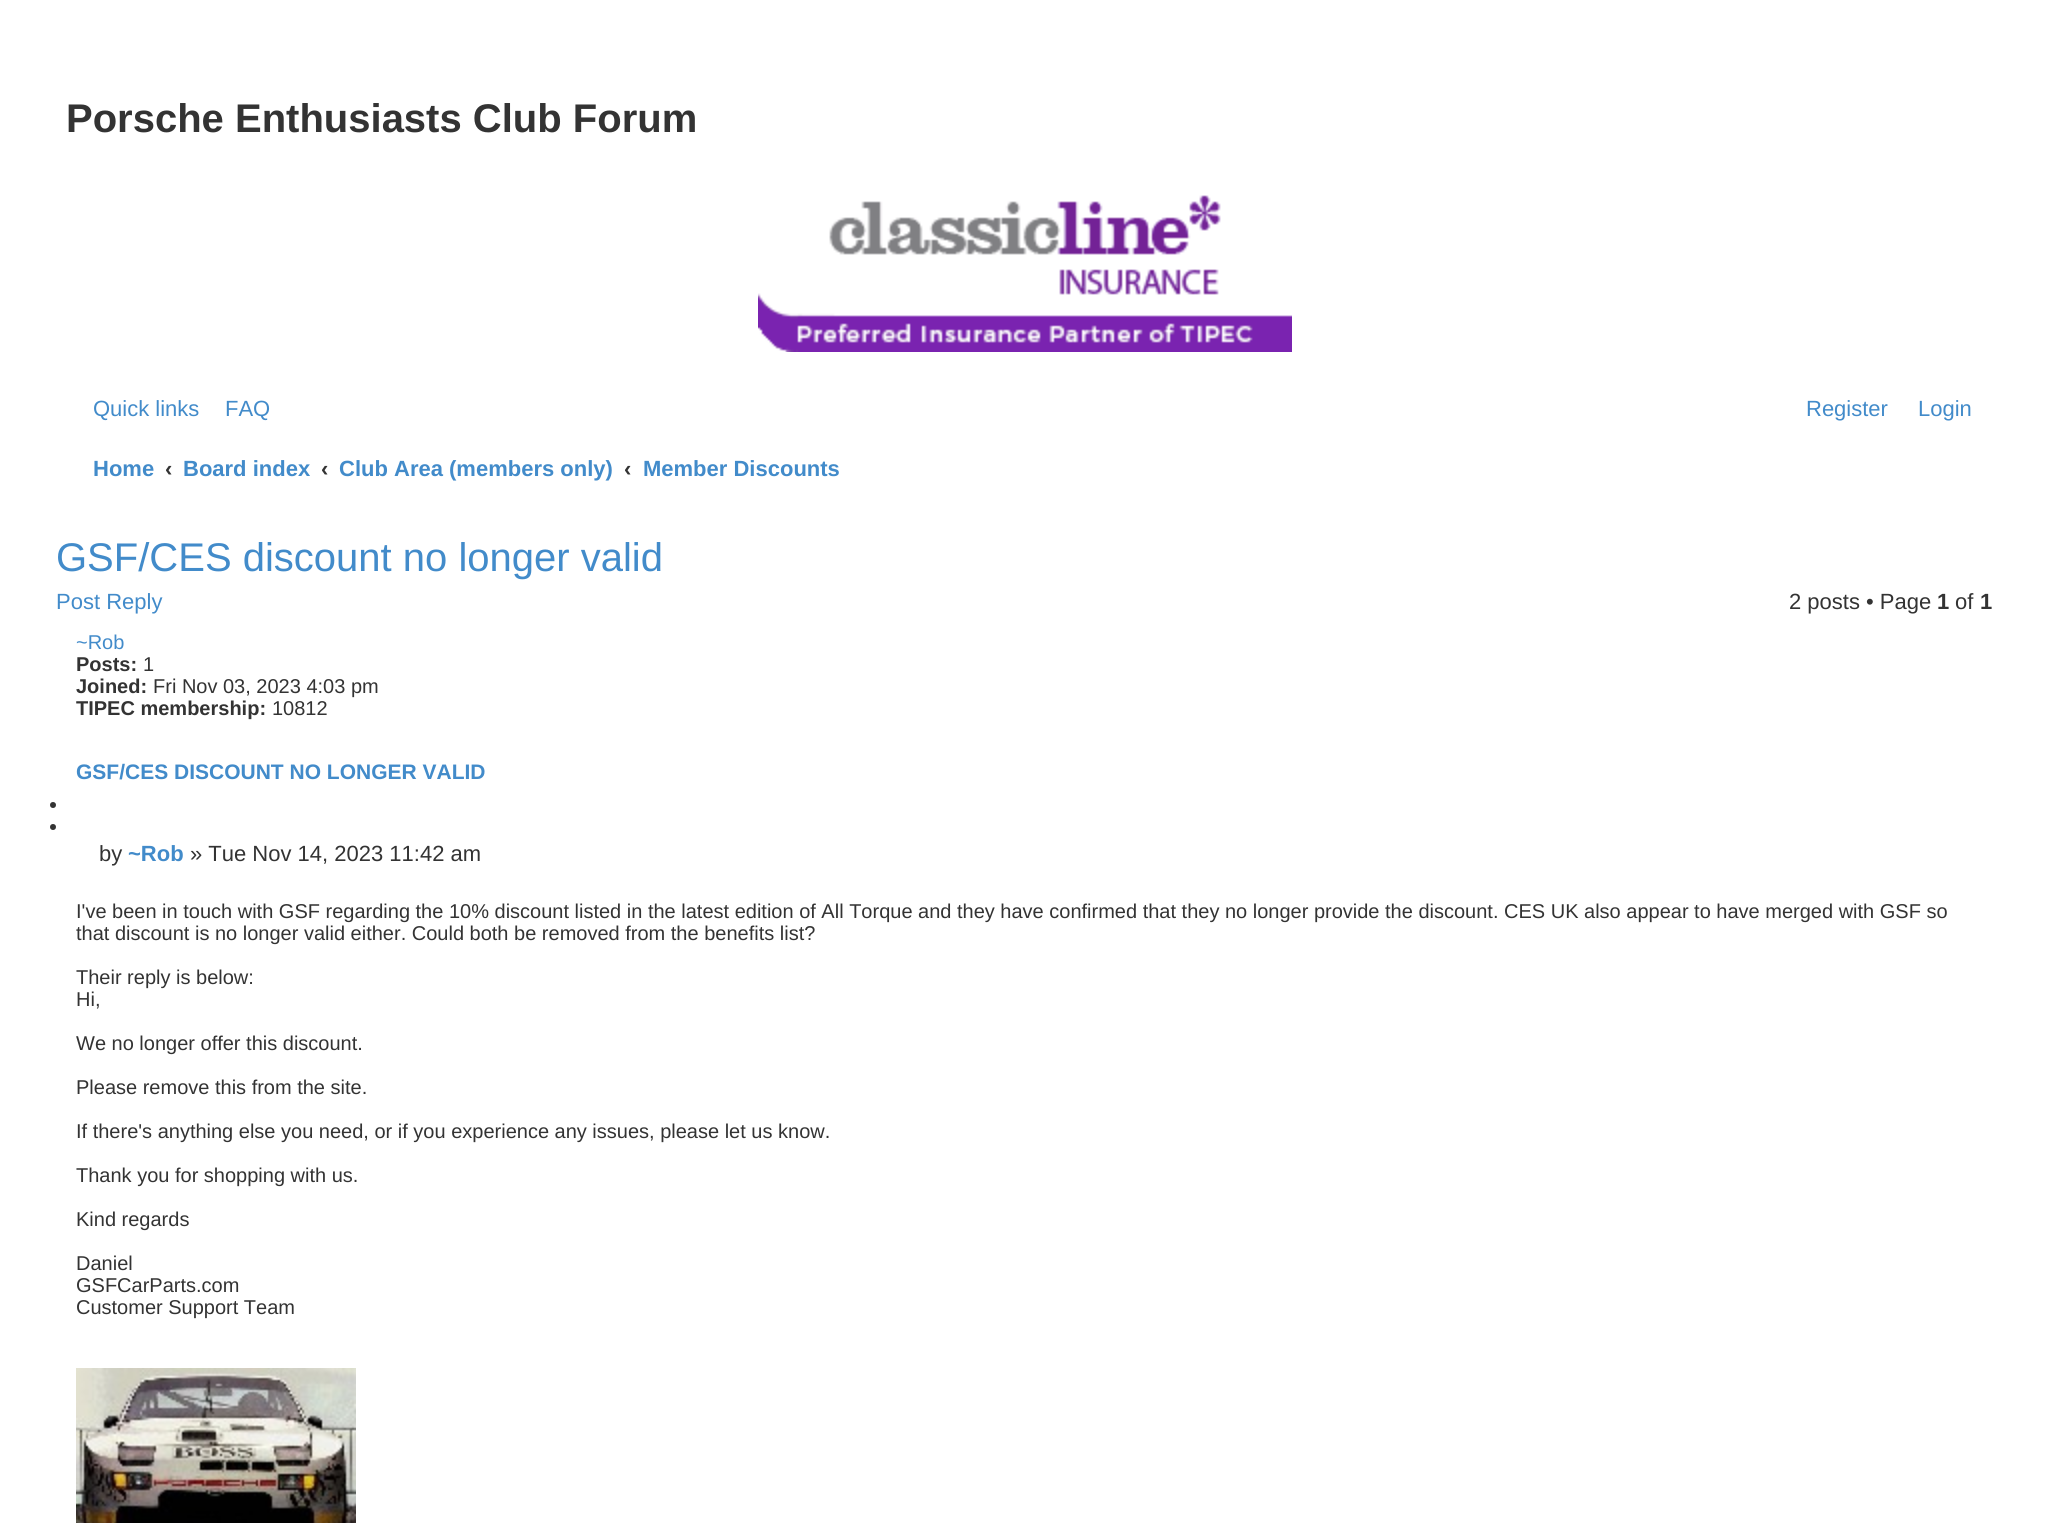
#include <cairo/cairo.h>
#include <math.h>
#include <stddef.h>

typedef struct { double x, y; const char *s; } line_t;
static cairo_t *cr;

static void rgb(unsigned color)
{
	cairo_set_source_rgb(cr, (color >> 16) / 255.0, (color >> 8 & 255) / 255.0, (color & 255) / 255.0);
}

static void image(const char *path, double x, double y, double w, double h)
{
	cairo_surface_t *image = cairo_image_surface_create_from_png(path);
	cairo_save(cr);
	cairo_set_source_surface(cr, image, x, y);
	cairo_rectangle(cr, x, y, w, h);
	cairo_fill(cr);
	cairo_restore(cr);
	cairo_surface_destroy(image);
}

int main(void) {
	cairo_surface_t *surface = cairo_image_surface_create(CAIRO_FORMAT_RGB24, 2048, 1523);
	cr = cairo_create(surface);
	cairo_font_options_t *options = cairo_font_options_create();
	cairo_font_options_set_hint_metrics(options, CAIRO_HINT_METRICS_OFF);
	cairo_font_options_set_hint_style(options, CAIRO_HINT_STYLE_NONE);
	cairo_set_font_options(cr, options);
	cairo_set_miter_limit(cr, 4);
	rgb(0xffffff);
	cairo_paint(cr);
	image("img/1.png", 758, 195, 534, 157);
	rgb(0x333333);
	cairo_arc(cr, 53, 805, 3, 0, 2 * M_PI);
	cairo_fill(cr);
	cairo_arc(cr, 53, 827, 3, 0, 2 * M_PI);
	cairo_fill(cr);
	image("img/2.png", 76, 1368, 280, 155);
	cairo_select_font_face(cr, "Liberation Sans", CAIRO_FONT_SLANT_NORMAL, CAIRO_FONT_WEIGHT_BOLD);
	cairo_set_font_size(cr, 40);
	cairo_move_to(cr, 66, 132);
	cairo_show_text(cr, "Porsche Enthusiasts Club Forum");
	cairo_select_font_face(cr, "Liberation Sans", CAIRO_FONT_SLANT_NORMAL, CAIRO_FONT_WEIGHT_NORMAL);
	cairo_set_font_size(cr, 22);
	rgb(0x428bca);
	{
		static const line_t items[] = {
			{93, 416, "Quick links"},
			{225, 416, "FAQ"},
			{1806, 416, "Register"},
			{1918, 416, "Login"},
		};
		for (size_t i = 0; i < sizeof items / sizeof *items; i++) {
			cairo_move_to(cr, items[i].x, items[i].y);
			cairo_show_text(cr, items[i].s);
		}
	}
	cairo_select_font_face(cr, "Liberation Sans", CAIRO_FONT_SLANT_NORMAL, CAIRO_FONT_WEIGHT_BOLD);
	cairo_move_to(cr, 93, 476);
	cairo_show_text(cr, "Home");
	rgb(0x333333);
	cairo_move_to(cr, 165, 476);
	cairo_show_text(cr, "‹");
	rgb(0x428bca);
	cairo_move_to(cr, 183, 476);
	cairo_show_text(cr, "Board index");
	rgb(0x333333);
	cairo_move_to(cr, 321, 476);
	cairo_show_text(cr, "‹");
	rgb(0x428bca);
	cairo_move_to(cr, 339, 476);
	cairo_show_text(cr, "Club Area (members only)");
	rgb(0x333333);
	cairo_move_to(cr, 624, 476);
	cairo_show_text(cr, "‹");
	rgb(0x428bca);
	cairo_move_to(cr, 643, 476);
	cairo_show_text(cr, "Member Discounts");
	cairo_select_font_face(cr, "Liberation Sans", CAIRO_FONT_SLANT_NORMAL, CAIRO_FONT_WEIGHT_NORMAL);
	cairo_set_font_size(cr, 40);
	cairo_move_to(cr, 56, 571);
	cairo_show_text(cr, "GSF/CES discount no longer valid");
	cairo_set_font_size(cr, 22);
	cairo_move_to(cr, 56, 609);
	cairo_show_text(cr, "Post Reply");
	rgb(0x333333);
	cairo_move_to(cr, 1789, 609);
	cairo_show_text(cr, "2 posts • Page");
	cairo_select_font_face(cr, "Liberation Sans", CAIRO_FONT_SLANT_NORMAL, CAIRO_FONT_WEIGHT_BOLD);
	cairo_move_to(cr, 1937, 609);
	cairo_show_text(cr, "1");
	cairo_select_font_face(cr, "Liberation Sans", CAIRO_FONT_SLANT_NORMAL, CAIRO_FONT_WEIGHT_NORMAL);
	cairo_move_to(cr, 1955, 609);
	cairo_show_text(cr, "of");
	cairo_select_font_face(cr, "Liberation Sans", CAIRO_FONT_SLANT_NORMAL, CAIRO_FONT_WEIGHT_BOLD);
	cairo_move_to(cr, 1980, 609);
	cairo_show_text(cr, "1");
	cairo_select_font_face(cr, "Liberation Sans", CAIRO_FONT_SLANT_NORMAL, CAIRO_FONT_WEIGHT_NORMAL);
	cairo_set_font_size(cr, 20);
	rgb(0x428bca);
	cairo_move_to(cr, 76, 649);
	cairo_show_text(cr, "~Rob");
	cairo_select_font_face(cr, "Liberation Sans", CAIRO_FONT_SLANT_NORMAL, CAIRO_FONT_WEIGHT_BOLD);
	rgb(0x333333);
	cairo_move_to(cr, 76, 671);
	cairo_show_text(cr, "Posts:");
	cairo_select_font_face(cr, "Liberation Sans", CAIRO_FONT_SLANT_NORMAL, CAIRO_FONT_WEIGHT_NORMAL);
	cairo_move_to(cr, 143, 671);
	cairo_show_text(cr, "1");
	cairo_select_font_face(cr, "Liberation Sans", CAIRO_FONT_SLANT_NORMAL, CAIRO_FONT_WEIGHT_BOLD);
	cairo_move_to(cr, 76, 693);
	cairo_show_text(cr, "Joined:");
	cairo_select_font_face(cr, "Liberation Sans", CAIRO_FONT_SLANT_NORMAL, CAIRO_FONT_WEIGHT_NORMAL);
	cairo_move_to(cr, 153, 693);
	cairo_show_text(cr, "Fri Nov 03, 2023 4:03 pm");
	cairo_select_font_face(cr, "Liberation Sans", CAIRO_FONT_SLANT_NORMAL, CAIRO_FONT_WEIGHT_BOLD);
	cairo_move_to(cr, 76, 715);
	cairo_show_text(cr, "TIPEC membership:");
	cairo_select_font_face(cr, "Liberation Sans", CAIRO_FONT_SLANT_NORMAL, CAIRO_FONT_WEIGHT_NORMAL);
	cairo_move_to(cr, 272, 715);
	cairo_show_text(cr, "10812");
	cairo_select_font_face(cr, "Liberation Sans", CAIRO_FONT_SLANT_NORMAL, CAIRO_FONT_WEIGHT_BOLD);
	cairo_set_font_size(cr, 21);
	rgb(0x428bca);
	cairo_move_to(cr, 76, 779);
	cairo_show_text(cr, "GSF/CES DISCOUNT NO LONGER VALID");
	cairo_select_font_face(cr, "Liberation Sans", CAIRO_FONT_SLANT_NORMAL, CAIRO_FONT_WEIGHT_NORMAL);
	cairo_set_font_size(cr, 22);
	rgb(0x333333);
	cairo_move_to(cr, 99, 861);
	cairo_show_text(cr, "by");
	cairo_select_font_face(cr, "Liberation Sans", CAIRO_FONT_SLANT_NORMAL, CAIRO_FONT_WEIGHT_BOLD);
	rgb(0x428bca);
	cairo_move_to(cr, 128, 861);
	cairo_show_text(cr, "~Rob");
	cairo_select_font_face(cr, "Liberation Sans", CAIRO_FONT_SLANT_NORMAL, CAIRO_FONT_WEIGHT_NORMAL);
	rgb(0x333333);
	cairo_move_to(cr, 190, 861);
	cairo_show_text(cr, "» Tue Nov 14, 2023 11:42 am");
	cairo_set_font_size(cr, 20);
	{
		static const line_t items[] = {
			{76, 918, "I've been in touch with GSF regarding the 10% discount listed in the latest edition of All Torque and they have confirmed that they no longer provide the discount. CES UK also appear to have merged with GSF so"},
			{76, 940, "that discount is no longer valid either. Could both be removed from the benefits list?"},
			{76, 984, "Their reply is below:"},
			{76, 1006, "Hi,"},
			{76, 1050, "We no longer offer this discount."},
			{76, 1094, "Please remove this from the site."},
			{76, 1138, "If there's anything else you need, or if you experience any issues, please let us know."},
			{76, 1182, "Thank you for shopping with us."},
			{76, 1226, "Kind regards"},
			{76, 1270, "Daniel"},
			{76, 1292, "GSFCarParts.com"},
			{76, 1314, "Customer Support Team"},
		};
		for (size_t i = 0; i < sizeof items / sizeof *items; i++) {
			cairo_move_to(cr, items[i].x, items[i].y);
			cairo_show_text(cr, items[i].s);
		}
	}
	cairo_surface_write_to_png(surface, "page.png");
	cairo_font_options_destroy(options);
	cairo_destroy(cr);
	cairo_surface_destroy(surface);
	return 0;
}
